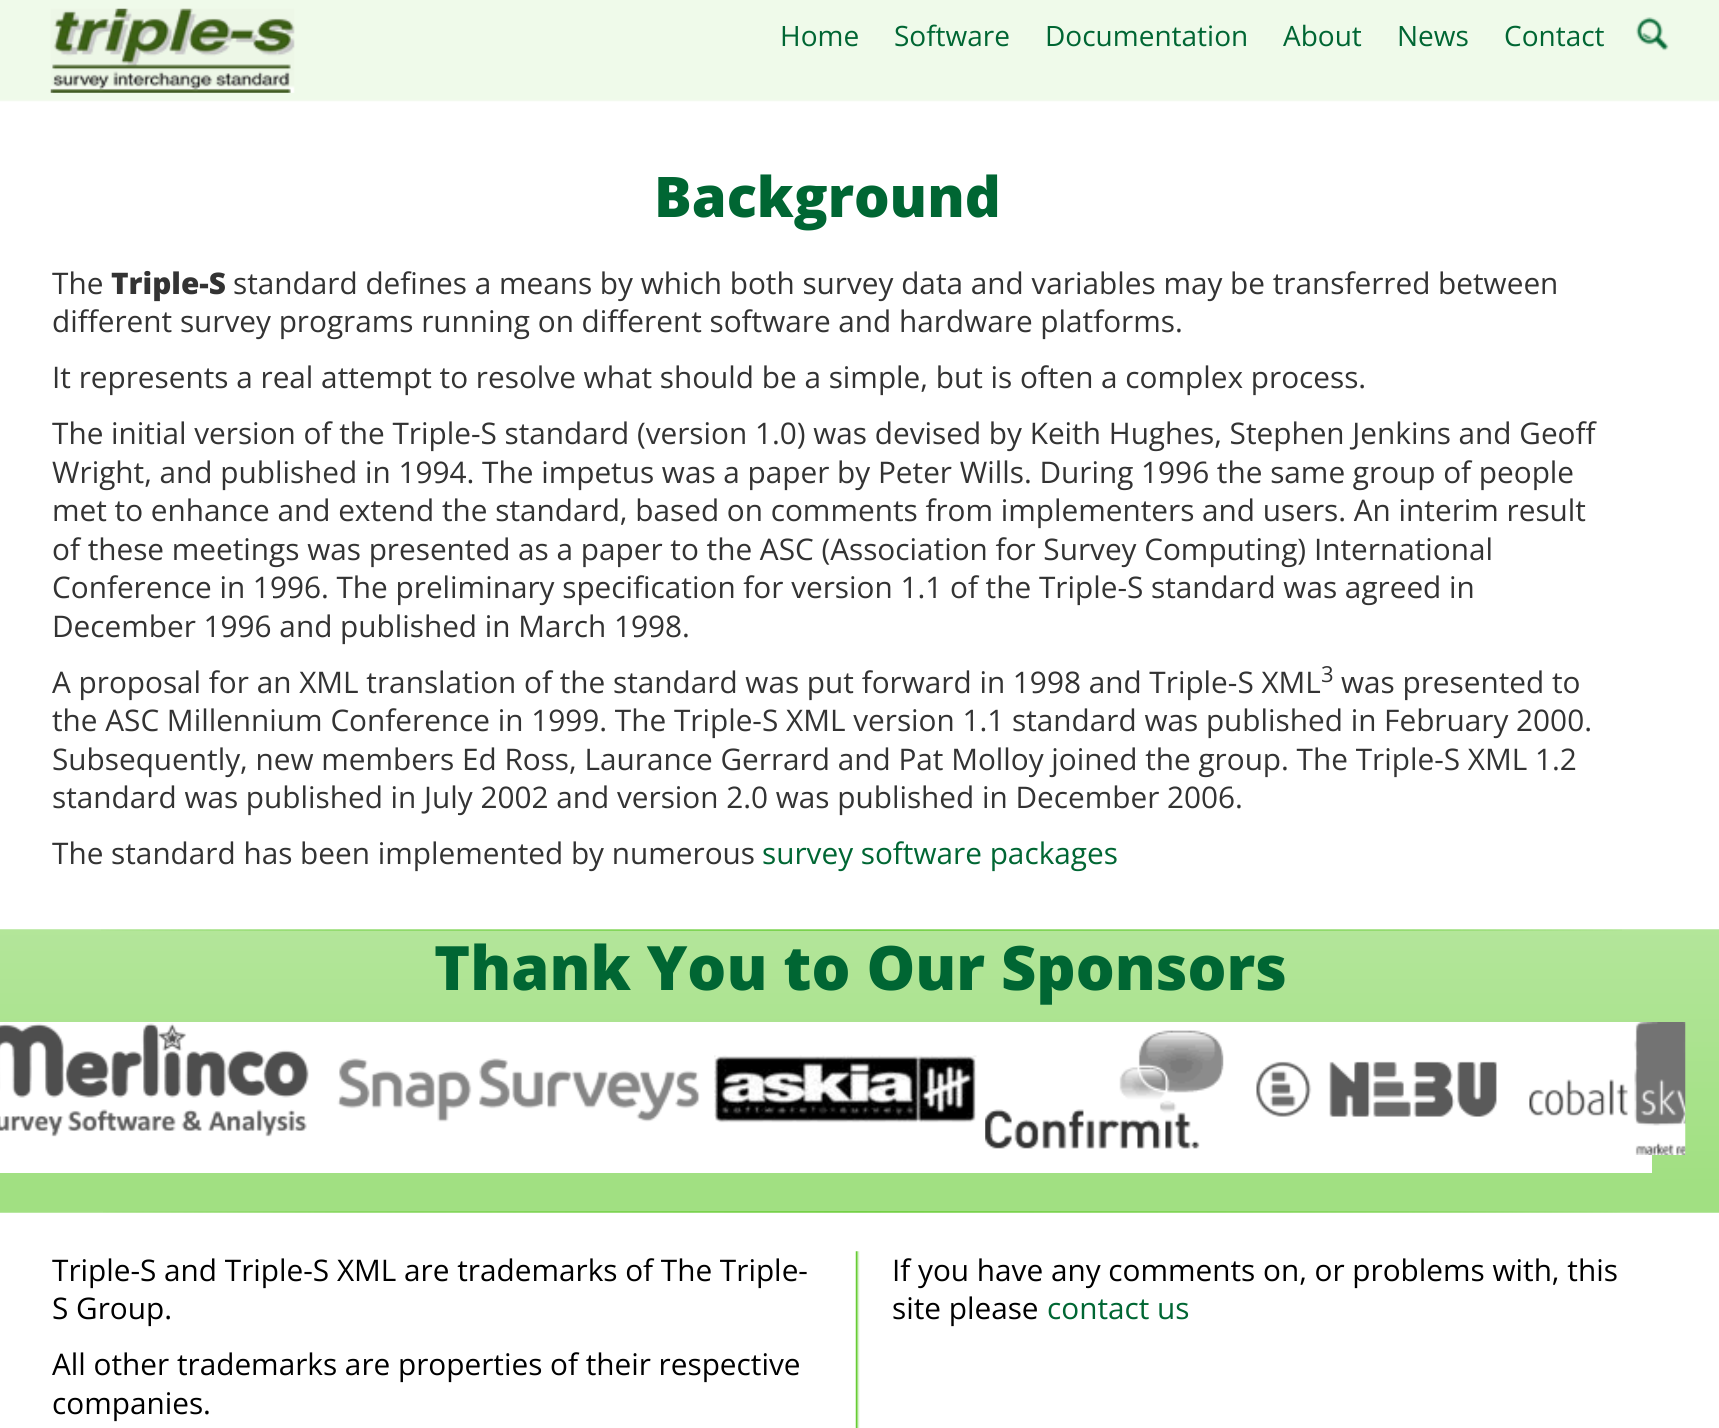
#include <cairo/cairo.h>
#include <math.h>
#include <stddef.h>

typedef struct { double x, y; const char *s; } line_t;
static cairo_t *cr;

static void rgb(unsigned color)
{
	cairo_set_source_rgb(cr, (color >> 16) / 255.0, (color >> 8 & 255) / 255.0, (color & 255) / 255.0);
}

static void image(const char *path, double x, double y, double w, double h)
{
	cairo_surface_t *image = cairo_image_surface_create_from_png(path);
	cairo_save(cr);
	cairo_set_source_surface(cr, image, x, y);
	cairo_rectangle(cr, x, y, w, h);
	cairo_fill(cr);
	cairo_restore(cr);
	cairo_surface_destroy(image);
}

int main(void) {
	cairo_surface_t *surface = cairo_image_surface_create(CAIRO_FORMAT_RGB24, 1719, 1428);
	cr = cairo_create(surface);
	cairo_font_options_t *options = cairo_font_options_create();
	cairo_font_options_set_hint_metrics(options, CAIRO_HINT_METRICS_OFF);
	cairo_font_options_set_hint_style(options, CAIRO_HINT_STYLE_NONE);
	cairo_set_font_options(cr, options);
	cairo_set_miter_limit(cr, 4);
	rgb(0xffffff);
	cairo_paint(cr);
	image("img/1.png", 0, 0, 1719, 102);
	image("img/2.png", 50, 8, 245, 85);
	image("img/3.png", 1636, 17, 33, 34);
	image("img/4.png", 0, 929, 1719, 284);
	image("img/5.png", 101, 929, 1521, 2);
	rgb(0xffffff);
	cairo_rectangle(cr, 0, 1022, 1652, 151);
	cairo_fill(cr);
	image("img/6.png", 0, 1023, 309, 114);
	image("img/7.png", 337, 1058, 363, 64);
	image("img/8.png", 714, 1055, 263, 68);
	image("img/9.png", 985, 1030, 239, 119);
	image("img/10.png", 1256, 1061, 241, 56);
	image("img/11.png", 1529, 1022, 157, 133);
	image("img/12.png", 103, 1211, 1517, 2);
	image("img/13.png", 855, 1251, 5, 177);
	cairo_select_font_face(cr, "Open Sans", CAIRO_FONT_SLANT_NORMAL, CAIRO_FONT_WEIGHT_NORMAL);
	cairo_set_font_size(cr, 28);
	rgb(0x006633);
	{
		static const line_t items[] = {
			{780, 46, "Home"},
			{894, 46, "Software"},
			{1045, 46, "Documentation"},
			{1283, 46, "About"},
			{1397, 46, "News"},
			{1504, 46, "Contact"},
		};
		for (size_t i = 0; i < sizeof items / sizeof *items; i++) {
			cairo_move_to(cr, items[i].x, items[i].y);
			cairo_show_text(cr, items[i].s);
		}
	}
	cairo_select_font_face(cr, "Open Sans ExtraBold", CAIRO_FONT_SLANT_NORMAL, CAIRO_FONT_WEIGHT_NORMAL);
	cairo_set_font_size(cr, 56);
	cairo_move_to(cr, 654, 217);
	cairo_show_text(cr, "Background");
	cairo_select_font_face(cr, "Open Sans", CAIRO_FONT_SLANT_NORMAL, CAIRO_FONT_WEIGHT_NORMAL);
	cairo_set_font_size(cr, 29.75);
	rgb(0x333333);
	cairo_move_to(cr, 52, 294);
	cairo_show_text(cr, "The");
	cairo_select_font_face(cr, "Open Sans ExtraBold", CAIRO_FONT_SLANT_NORMAL, CAIRO_FONT_WEIGHT_NORMAL);
	cairo_move_to(cr, 111, 294);
	cairo_show_text(cr, "Triple-S");
	cairo_select_font_face(cr, "Open Sans", CAIRO_FONT_SLANT_NORMAL, CAIRO_FONT_WEIGHT_NORMAL);
	{
		static const line_t items[] = {
			{233, 294, "standard defines a means by which both survey data and variables may be transferred between"},
			{52, 332, "different survey programs running on different software and hardware platforms."},
			{52, 388, "It represents a real attempt to resolve what should be a simple, but is often a complex process."},
			{52, 444, "The initial version of the Triple-S standard (version 1.0) was devised by Keith Hughes, Stephen Jenkins and Geoff"},
			{52, 483, "Wright, and published in 1994. The impetus was a paper by Peter Wills. During 1996 the same group of people"},
			{52, 521, "met to enhance and extend the standard, based on comments from implementers and users. An interim result"},
			{52, 560, "of these meetings was presented as a paper to the ASC (Association for Survey Computing) International"},
			{52, 598, "Conference in 1996. The preliminary specification for version 1.1 of the Triple-S standard was agreed in"},
			{52, 637, "December 1996 and published in March 1998."},
			{52, 693, "A proposal for an XML translation of the standard was put forward in 1998 and Triple-S XML"},
		};
		for (size_t i = 0; i < sizeof items / sizeof *items; i++) {
			cairo_move_to(cr, items[i].x, items[i].y);
			cairo_show_text(cr, items[i].s);
		}
	}
	cairo_set_font_size(cr, 22);
	cairo_move_to(cr, 1321, 682);
	cairo_show_text(cr, "3");
	cairo_set_font_size(cr, 29.75);
	{
		static const line_t items[] = {
			{1341, 693, "was presented to"},
			{52, 731, "the ASC Millennium Conference in 1999. The Triple-S XML version 1.1 standard was published in February 2000."},
			{52, 770, "Subsequently, new members Ed Ross, Laurance Gerrard and Pat Molloy joined the group. The Triple-S XML 1.2"},
			{52, 808, "standard was published in July 2002 and version 2.0 was published in December 2006."},
			{52, 864, "The standard has been implemented by numerous"},
		};
		for (size_t i = 0; i < sizeof items / sizeof *items; i++) {
			cairo_move_to(cr, items[i].x, items[i].y);
			cairo_show_text(cr, items[i].s);
		}
	}
	rgb(0x006633);
	cairo_move_to(cr, 762, 864);
	cairo_show_text(cr, "survey software packages");
	cairo_select_font_face(cr, "Open Sans ExtraBold", CAIRO_FONT_SLANT_NORMAL, CAIRO_FONT_WEIGHT_NORMAL);
	cairo_set_font_size(cr, 61.25);
	cairo_move_to(cr, 434, 990);
	cairo_show_text(cr, "Thank You to Our Sponsors");
	cairo_select_font_face(cr, "Open Sans", CAIRO_FONT_SLANT_NORMAL, CAIRO_FONT_WEIGHT_NORMAL);
	cairo_set_font_size(cr, 29.75);
	rgb(0x000000);
	{
		static const line_t items[] = {
			{52, 1281, "Triple-S and Triple-S XML are trademarks of The Triple-"},
			{52, 1319, "S Group."},
			{52, 1375, "All other trademarks are properties of their respective"},
			{52, 1414, "companies."},
			{892, 1281, "If you have any comments on, or problems with, this"},
			{892, 1319, "site please"},
		};
		for (size_t i = 0; i < sizeof items / sizeof *items; i++) {
			cairo_move_to(cr, items[i].x, items[i].y);
			cairo_show_text(cr, items[i].s);
		}
	}
	rgb(0x006633);
	cairo_move_to(cr, 1047, 1319);
	cairo_show_text(cr, "contact us");
	cairo_surface_write_to_png(surface, "page.png");
	cairo_font_options_destroy(options);
	cairo_destroy(cr);
	cairo_surface_destroy(surface);
	return 0;
}
